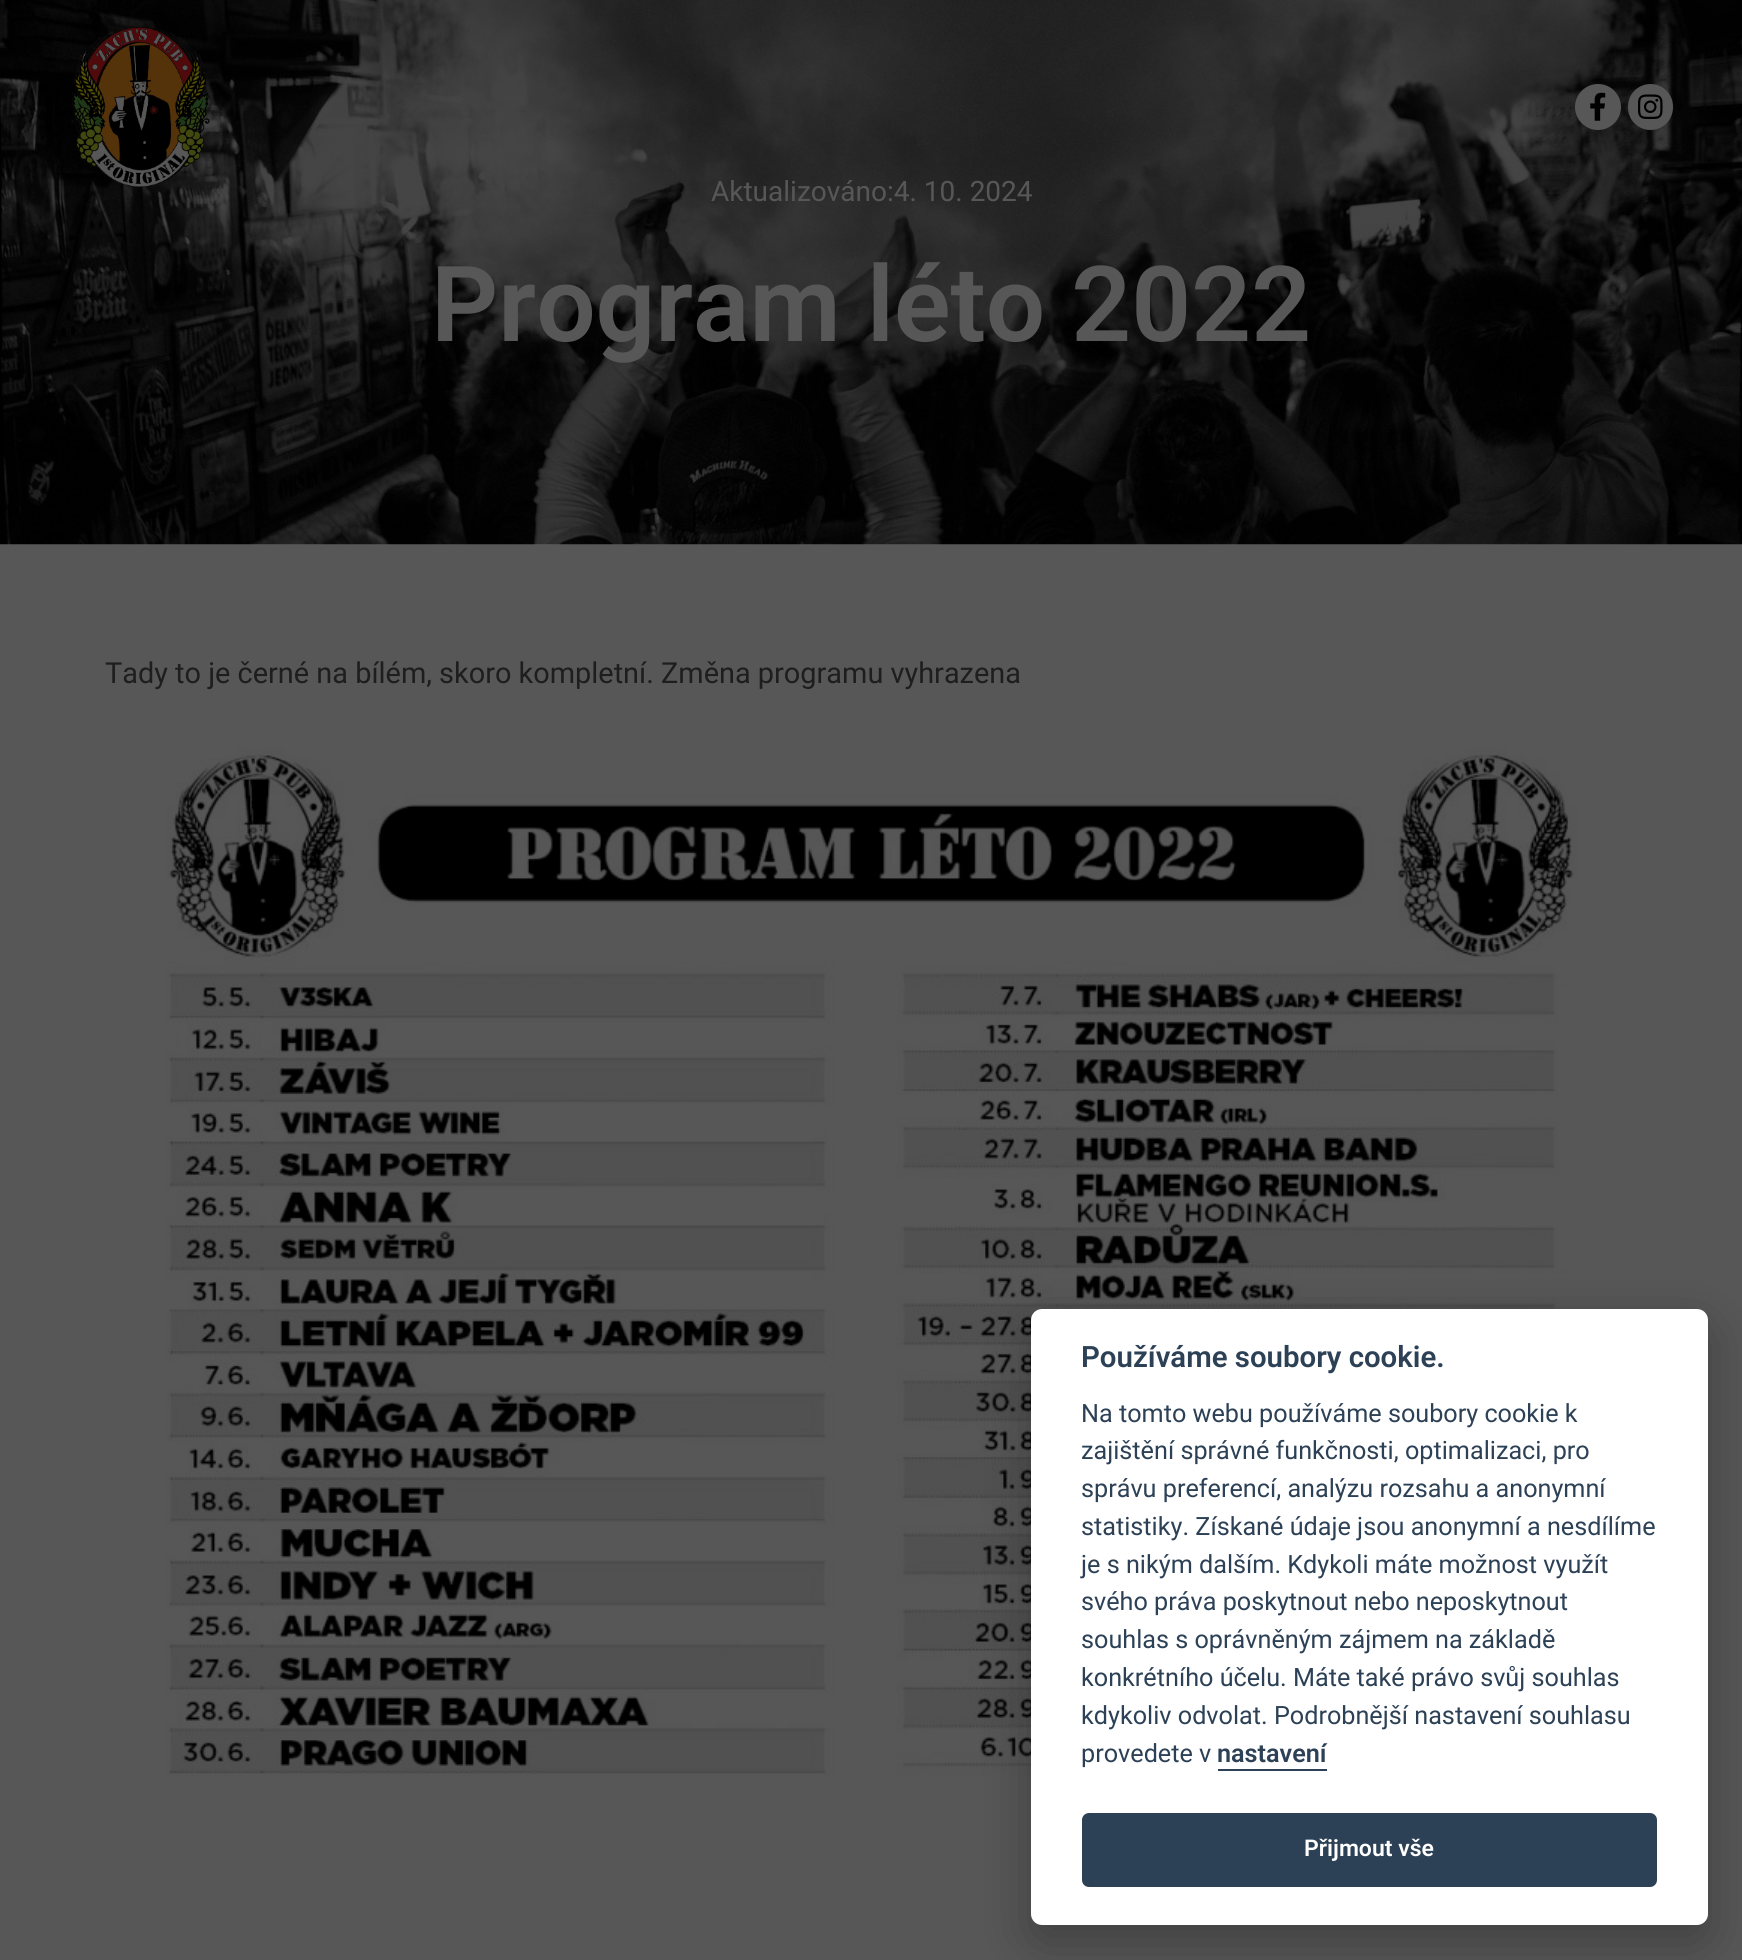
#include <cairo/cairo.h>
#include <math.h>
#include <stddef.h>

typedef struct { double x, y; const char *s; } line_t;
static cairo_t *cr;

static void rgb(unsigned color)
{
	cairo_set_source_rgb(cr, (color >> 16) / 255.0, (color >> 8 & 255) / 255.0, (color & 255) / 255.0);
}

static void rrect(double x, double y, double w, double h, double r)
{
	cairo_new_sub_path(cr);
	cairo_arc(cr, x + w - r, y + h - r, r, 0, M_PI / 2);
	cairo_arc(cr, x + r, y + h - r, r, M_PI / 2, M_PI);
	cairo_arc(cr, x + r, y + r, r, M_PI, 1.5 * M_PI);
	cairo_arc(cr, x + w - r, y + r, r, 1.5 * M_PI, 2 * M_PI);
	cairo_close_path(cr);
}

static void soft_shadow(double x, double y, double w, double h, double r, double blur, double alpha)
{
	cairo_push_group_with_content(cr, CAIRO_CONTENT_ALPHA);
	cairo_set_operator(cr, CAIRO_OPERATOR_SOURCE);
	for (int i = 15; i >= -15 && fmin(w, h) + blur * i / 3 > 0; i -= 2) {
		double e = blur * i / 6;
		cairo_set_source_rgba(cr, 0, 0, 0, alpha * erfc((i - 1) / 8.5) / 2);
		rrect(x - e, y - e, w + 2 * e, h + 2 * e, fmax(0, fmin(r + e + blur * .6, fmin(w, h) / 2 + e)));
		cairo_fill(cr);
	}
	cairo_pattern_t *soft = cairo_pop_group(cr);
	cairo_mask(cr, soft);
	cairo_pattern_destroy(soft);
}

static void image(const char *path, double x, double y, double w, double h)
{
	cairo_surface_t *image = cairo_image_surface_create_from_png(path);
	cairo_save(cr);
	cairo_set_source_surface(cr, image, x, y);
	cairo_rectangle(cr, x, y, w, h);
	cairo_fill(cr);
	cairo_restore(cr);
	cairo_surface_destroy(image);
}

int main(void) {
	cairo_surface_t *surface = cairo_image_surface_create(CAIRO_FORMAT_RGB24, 1742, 1960);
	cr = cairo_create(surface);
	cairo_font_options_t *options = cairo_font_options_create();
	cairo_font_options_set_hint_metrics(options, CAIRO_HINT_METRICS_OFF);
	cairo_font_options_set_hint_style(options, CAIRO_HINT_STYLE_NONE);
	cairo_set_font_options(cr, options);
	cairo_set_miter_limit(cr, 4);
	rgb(0x575757);
	cairo_paint(cr);
	image("img/4.png", 0, 0, 1742, 545);
	image("img/1.png", 70, 26, 140, 162);
	rgb(0x575757);
	cairo_arc(cr, 1598, 107, 23, 0, 2 * M_PI);
	cairo_fill(cr);
	image("img/2.png", 1590, 92, 16, 29);
	rrect(1628, 84, 45, 46, 22.5);
	cairo_fill(cr);
	image("img/3.png", 1638, 94, 25, 25);
	image("img/5.png", 165, 747, 1413, 1029);
	rgb(0x020203);
	soft_shadow(1031, 1327, 677, 616, 11, 26, 0.28);
	rgb(0xffffff);
	rrect(1031, 1309, 677, 616, 11);
	cairo_fill(cr);
	rgb(0x2d4156);
	cairo_rectangle(cr, 1218, 1769, 109, 2);
	cairo_fill(cr);
	rrect(1082, 1813, 575, 74, 7);
	cairo_fill(cr);
	cairo_select_font_face(cr, "Roboto", CAIRO_FONT_SLANT_NORMAL, CAIRO_FONT_WEIGHT_NORMAL);
	cairo_set_font_size(cr, 28);
	rgb(0x575757);
	cairo_move_to(cr, 711, 201);
	cairo_show_text(cr, "Aktualizováno:4. 10. 2024");
	cairo_select_font_face(cr, "Roboto SemiBold", CAIRO_FONT_SLANT_NORMAL, CAIRO_FONT_WEIGHT_NORMAL);
	cairo_set_font_size(cr, 105);
	cairo_move_to(cr, 431, 341);
	cairo_show_text(cr, "Program léto 2022");
	cairo_select_font_face(cr, "Roboto", CAIRO_FONT_SLANT_NORMAL, CAIRO_FONT_WEIGHT_NORMAL);
	cairo_set_font_size(cr, 28.9);
	rgb(0x1e1e1e);
	cairo_move_to(cr, 105, 683);
	cairo_show_text(cr, "Tady to je černé na bílém, skoro kompletní. Změna programu vyhrazena");
	cairo_select_font_face(cr, "Roboto SemiBold", CAIRO_FONT_SLANT_NORMAL, CAIRO_FONT_WEIGHT_NORMAL);
	cairo_set_font_size(cr, 29.4);
	rgb(0x2d4156);
	cairo_move_to(cr, 1081, 1367);
	cairo_show_text(cr, "Používáme soubory cookie.");
	cairo_select_font_face(cr, "Roboto", CAIRO_FONT_SLANT_NORMAL, CAIRO_FONT_WEIGHT_NORMAL);
	cairo_set_font_size(cr, 25.2);
	{
		static const line_t items[] = {
			{1081, 1422, "Na tomto webu používáme soubory cookie k"},
			{1081, 1459, "zajištění správné funkčnosti, optimalizaci, pro"},
			{1081, 1497, "správu preferencí, analýzu rozsahu a anonymní"},
			{1081, 1535, "statistiky. Získané údaje jsou anonymní a nesdílíme"},
			{1081, 1573, "je s nikým dalším. Kdykoli máte možnost využít"},
			{1081, 1610, "svého práva poskytnout nebo neposkytnout"},
			{1081, 1648, "souhlas s oprávněným zájmem na základě"},
			{1081, 1686, "konkrétního účelu. Máte také právo svůj souhlas"},
			{1081, 1724, "kdykoliv odvolat. Podrobnější nastavení souhlasu"},
			{1081, 1762, "provedete v"},
		};
		for (size_t i = 0; i < sizeof items / sizeof *items; i++) {
			cairo_move_to(cr, items[i].x, items[i].y);
			cairo_show_text(cr, items[i].s);
		}
	}
	cairo_select_font_face(cr, "Roboto SemiBold", CAIRO_FONT_SLANT_NORMAL, CAIRO_FONT_WEIGHT_NORMAL);
	cairo_move_to(cr, 1217, 1762);
	cairo_show_text(cr, "nastavení");
	cairo_set_font_size(cr, 23);
	rgb(0xffffff);
	cairo_move_to(cr, 1304, 1856);
	cairo_show_text(cr, "Přijmout vše");
	cairo_surface_write_to_png(surface, "page.png");
	cairo_font_options_destroy(options);
	cairo_destroy(cr);
	cairo_surface_destroy(surface);
	return 0;
}
